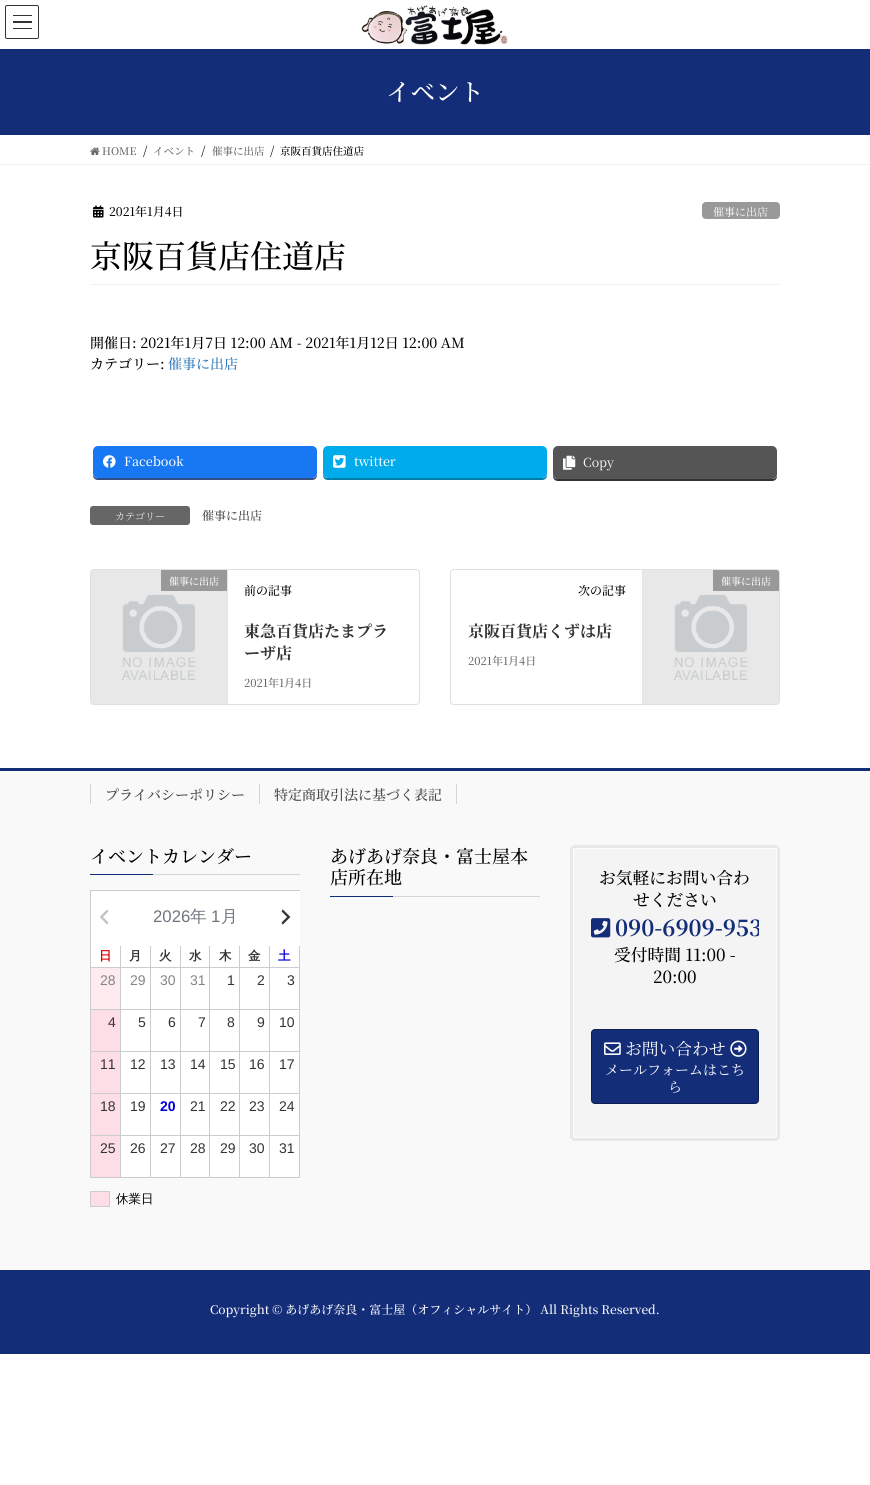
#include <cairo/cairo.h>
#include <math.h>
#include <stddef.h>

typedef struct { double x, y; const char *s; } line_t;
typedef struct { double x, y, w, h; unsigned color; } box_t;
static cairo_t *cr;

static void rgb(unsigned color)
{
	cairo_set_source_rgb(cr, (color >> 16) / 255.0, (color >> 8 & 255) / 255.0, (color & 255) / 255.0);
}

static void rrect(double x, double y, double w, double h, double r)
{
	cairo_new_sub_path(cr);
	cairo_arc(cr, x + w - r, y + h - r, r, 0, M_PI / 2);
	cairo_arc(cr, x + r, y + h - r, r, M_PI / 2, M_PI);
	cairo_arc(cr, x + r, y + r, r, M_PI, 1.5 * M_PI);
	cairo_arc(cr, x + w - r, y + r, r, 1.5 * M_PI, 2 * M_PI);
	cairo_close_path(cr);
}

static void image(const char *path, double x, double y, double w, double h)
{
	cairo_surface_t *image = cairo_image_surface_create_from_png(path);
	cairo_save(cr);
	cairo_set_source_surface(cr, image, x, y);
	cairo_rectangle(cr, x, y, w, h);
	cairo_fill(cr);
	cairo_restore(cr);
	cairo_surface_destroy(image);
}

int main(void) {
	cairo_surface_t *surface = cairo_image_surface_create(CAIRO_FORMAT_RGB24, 870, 1485);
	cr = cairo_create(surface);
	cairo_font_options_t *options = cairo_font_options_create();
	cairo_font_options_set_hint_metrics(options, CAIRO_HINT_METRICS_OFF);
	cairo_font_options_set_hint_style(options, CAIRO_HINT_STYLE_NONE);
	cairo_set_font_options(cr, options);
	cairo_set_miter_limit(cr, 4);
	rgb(0xffffff);
	cairo_paint(cr);
	{
		static const box_t items[] = {
			{13, 15, 19, 1, 0x333333},
			{13, 21, 19, 2, 0x333333},
			{13, 28, 19, 1, 0x333333},
		};
		for (size_t i = 0; i < sizeof items / sizeof *items; i++) {
			rgb(items[i].color);
			cairo_rectangle(cr, items[i].x, items[i].y, items[i].w, items[i].h);
			cairo_fill(cr);
		}
	}
	rrect(5.5, 5.5, 33, 33, 1.5);
	cairo_set_line_width(cr, 1);
	cairo_stroke(cr);
	image("img/1.png", 361, 5, 148, 40);
	rgb(0x142d78);
	cairo_rectangle(cr, 0, 49, 870, 86);
	cairo_fill(cr);
	rgb(0xf2f2f2);
	cairo_rectangle(cr, 0, 164, 870, 1);
	cairo_fill(cr);
	image("img/2.png", 90, 147, 10, 8);
	cairo_rectangle(cr, 90, 284, 690, 1);
	cairo_fill(cr);
	image("img/3.png", 93, 205, 11, 13);
	rgb(0x999999);
	rrect(702, 202, 78, 17, 4);
	cairo_fill(cr);
	rgb(0x344e84);
	cairo_new_path(cr);
	cairo_move_to(cr, 93, 473);
	cairo_line_to(cr, 93, 475);
	cairo_curve_to(cr, 93, 478, 95, 480, 98, 480);
	cairo_line_to(cr, 312, 480);
	cairo_curve_to(cr, 315, 480, 317, 478, 317, 475);
	cairo_line_to(cr, 317, 473);
	cairo_curve_to(cr, 317, 476, 315, 478, 312, 478);
	cairo_line_to(cr, 98, 478);
	cairo_curve_to(cr, 95, 478, 93, 476, 93, 473);
	cairo_close_path(cr);
	cairo_fill(cr);
	rgb(0x1877f2);
	rrect(93, 446, 224, 32, 5);
	cairo_fill(cr);
	image("img/4.png", 103, 455, 13, 13);
	rgb(0x007eaa);
	cairo_new_path(cr);
	cairo_move_to(cr, 323, 473);
	cairo_line_to(cr, 323, 475);
	cairo_curve_to(cr, 323, 478, 325, 480, 328, 480);
	cairo_line_to(cr, 542, 480);
	cairo_curve_to(cr, 545, 480, 547, 478, 547, 475);
	cairo_line_to(cr, 547, 473);
	cairo_curve_to(cr, 547, 476, 545, 478, 542, 478);
	cairo_line_to(cr, 328, 478);
	cairo_curve_to(cr, 325, 478, 323, 476, 323, 473);
	cairo_close_path(cr);
	cairo_fill(cr);
	rgb(0x00abec);
	rrect(323, 446, 224, 32, 5);
	cairo_fill(cr);
	image("img/5.png", 333, 455, 13, 13);
	rgb(0x333333);
	cairo_new_path(cr);
	cairo_move_to(cr, 553, 474);
	cairo_line_to(cr, 553, 476);
	cairo_curve_to(cr, 553, 479, 555, 481, 558, 481);
	cairo_line_to(cr, 772, 481);
	cairo_curve_to(cr, 775, 481, 777, 479, 777, 476);
	cairo_line_to(cr, 777, 474);
	cairo_curve_to(cr, 777, 477, 775, 479, 772, 479);
	cairo_line_to(cr, 558, 479);
	cairo_curve_to(cr, 555, 479, 553, 477, 553, 474);
	cairo_close_path(cr);
	cairo_fill(cr);
	rgb(0x555555);
	rrect(553, 446, 224, 33, 5);
	cairo_fill(cr);
	image("img/6.png", 563, 455, 13, 15);
	rgb(0x666666);
	rrect(90, 506, 100, 19, 3);
	cairo_fill(cr);
	rrect(90.5, 569.5, 329, 135, 3.5);
	rgb(0xdfdfdf);
	cairo_stroke(cr);
	image("img/7.png", 91, 570, 136, 134);
	rgb(0xe5e5e5);
	cairo_rectangle(cr, 227, 570, 1, 134);
	cairo_fill(cr);
	rgb(0x999999);
	cairo_rectangle(cr, 161, 570, 66, 21);
	cairo_fill(cr);
	rrect(450.5, 569.5, 329, 135, 3.5);
	rgb(0xdfdfdf);
	cairo_stroke(cr);
	image("img/8.png", 643, 570, 136, 134);
	rgb(0xe5e5e5);
	cairo_rectangle(cr, 642, 570, 1, 134);
	cairo_fill(cr);
	rgb(0x999999);
	cairo_new_path(cr);
	cairo_move_to(cr, 713, 570);
	cairo_line_to(cr, 776.5, 570);
	cairo_curve_to(cr, 778, 570, 779, 571, 779, 572.5);
	cairo_line_to(cr, 779, 591);
	cairo_line_to(cr, 713, 591);
	cairo_close_path(cr);
	cairo_fill(cr);
	{
		static const box_t items[] = {
			{0, 771, 870, 499, 0xf9f9f9},
			{0, 768, 870, 3, 0x142d78},
			{90, 784, 1, 20, 0xd4d4d4},
			{456, 784, 1, 20, 0xd4d4d4},
			{259, 784, 1, 20, 0xd4d4d4},
			{153, 874, 147, 1, 0xd4d4d4},
			{90, 874, 63, 1, 0x142d78},
			{91, 891, 209, 76, 0xffffff},
			{90, 890, 210, 1, 0xcccccc},
			{90, 1177, 210, 1, 0xcccccc},
			{90, 890, 1, 288, 0xcccccc},
		};
		for (size_t i = 0; i < sizeof items / sizeof *items; i++) {
			rgb(items[i].color);
			cairo_rectangle(cr, items[i].x, items[i].y, items[i].w, items[i].h);
			cairo_fill(cr);
		}
	}
	image("img/9.png", 100, 909, 9, 16);
	image("img/10.png", 281, 909, 10, 16);
	{
		static const box_t items[] = {
			{120, 946, 1, 21, 0xcccccc},
			{150, 946, 1, 21, 0xcccccc},
			{180, 946, 1, 21, 0xcccccc},
			{209, 946, 1, 21, 0xcccccc},
			{239, 946, 1, 21, 0xcccccc},
			{269, 946, 1, 21, 0xcccccc},
			{299, 946, 1, 21, 0xcccccc},
			{121, 968, 178, 41, 0xffffff},
			{91, 967, 209, 1, 0xcccccc},
			{120, 967, 1, 42, 0xcccccc},
			{91, 968, 29, 41, 0xfeebf0},
			{150, 967, 1, 42, 0xcccccc},
			{180, 967, 1, 42, 0xcccccc},
			{209, 967, 1, 42, 0xcccccc},
			{239, 967, 1, 42, 0xcccccc},
			{269, 967, 1, 42, 0xcccccc},
			{299, 967, 1, 42, 0xcccccc},
			{121, 1010, 178, 41, 0xffffff},
			{91, 1009, 209, 1, 0xcccccc},
			{120, 1009, 1, 42, 0xcccccc},
			{91, 1010, 29, 41, 0xfddde6},
			{150, 1009, 1, 42, 0xcccccc},
			{180, 1009, 1, 42, 0xcccccc},
			{209, 1009, 1, 42, 0xcccccc},
			{239, 1009, 1, 42, 0xcccccc},
			{269, 1009, 1, 42, 0xcccccc},
			{299, 1009, 1, 42, 0xcccccc},
			{121, 1052, 178, 41, 0xffffff},
			{91, 1051, 209, 1, 0xcccccc},
			{120, 1051, 1, 42, 0xcccccc},
			{91, 1052, 29, 41, 0xfddde6},
			{150, 1051, 1, 42, 0xcccccc},
			{180, 1051, 1, 42, 0xcccccc},
			{209, 1051, 1, 42, 0xcccccc},
			{239, 1051, 1, 42, 0xcccccc},
			{269, 1051, 1, 42, 0xcccccc},
			{299, 1051, 1, 42, 0xcccccc},
			{121, 1094, 178, 41, 0xffffff},
			{91, 1093, 209, 1, 0xcccccc},
			{120, 1093, 1, 42, 0xcccccc},
			{91, 1094, 29, 41, 0xfddde6},
			{150, 1093, 1, 42, 0xcccccc},
			{180, 1093, 1, 42, 0xcccccc},
			{209, 1093, 1, 42, 0xcccccc},
			{239, 1093, 1, 42, 0xcccccc},
			{269, 1093, 1, 42, 0xcccccc},
			{299, 1093, 1, 42, 0xcccccc},
			{121, 1136, 178, 41, 0xffffff},
			{91, 1135, 209, 1, 0xcccccc},
			{120, 1135, 1, 42, 0xcccccc},
			{91, 1136, 29, 41, 0xfddde6},
			{150, 1135, 1, 42, 0xcccccc},
			{180, 1135, 1, 42, 0xcccccc},
			{209, 1135, 1, 42, 0xcccccc},
			{239, 1135, 1, 42, 0xcccccc},
			{269, 1135, 1, 42, 0xcccccc},
			{299, 1135, 1, 42, 0xcccccc},
		};
		for (size_t i = 0; i < sizeof items / sizeof *items; i++) {
			rgb(items[i].color);
			cairo_rectangle(cr, items[i].x, items[i].y, items[i].w, items[i].h);
			cairo_fill(cr);
		}
	}
	rgb(0xfddde6);
	cairo_rectangle(cr, 90.5, 1191.5, 19, 15);
	cairo_fill_preserve(cr);
	rgb(0xcccccc);
	cairo_stroke(cr);
	rgb(0xd4d4d4);
	cairo_rectangle(cr, 393, 896, 147, 1);
	cairo_fill(cr);
	rgb(0x142d78);
	cairo_rectangle(cr, 330, 896, 63, 1);
	cairo_fill(cr);
	rrect(571.5, 846.5, 207, 293, 3.5);
	rgb(0xe8e8e8);
	cairo_set_line_width(cr, 3);
	cairo_stroke(cr);
	rgb(0xf4f4f4);
	rrect(573, 848, 204, 290, 2);
	cairo_fill(cr);
	rgb(0xfdfdfd);
	cairo_set_fill_rule(cr, CAIRO_FILL_RULE_EVEN_ODD);
	cairo_new_path(cr);
	cairo_move_to(cr, 575, 848);
	cairo_curve_to(cr, 574, 848, 573, 849, 573, 850);
	cairo_line_to(cr, 573, 1136);
	cairo_curve_to(cr, 573, 1137, 574, 1138, 575, 1138);
	cairo_line_to(cr, 775, 1138);
	cairo_curve_to(cr, 776, 1138, 777, 1137, 777, 1136);
	cairo_line_to(cr, 777, 850);
	cairo_curve_to(cr, 777, 849, 776, 848, 775, 848);
	cairo_close_path(cr);
	cairo_move_to(cr, 574, 849);
	cairo_line_to(cr, 574, 1137);
	cairo_line_to(cr, 776, 1137);
	cairo_line_to(cr, 776, 849);
	cairo_close_path(cr);
	cairo_fill(cr);
	image("img/11.png", 591, 918, 20, 20);
	rgb(0x142d78);
	rrect(591.5, 1029.5, 167, 74, 3.5);
	cairo_fill_preserve(cr);
	rgb(0x0d1e50);
	cairo_set_line_width(cr, 1);
	cairo_stroke(cr);
	image("img/12.png", 604, 1042, 17, 13);
	image("img/13.png", 730, 1040, 17, 17);
	rgb(0x142d78);
	cairo_rectangle(cr, 0, 1270, 870, 84);
	cairo_fill(cr);
	cairo_select_font_face(cr, "Noto Serif JP Medium", CAIRO_FONT_SLANT_NORMAL, CAIRO_FONT_WEIGHT_NORMAL);
	cairo_set_font_size(cr, 24.5);
	rgb(0xffffff);
	cairo_move_to(cr, 386, 101);
	cairo_show_text(cr, "イベント");
	cairo_set_font_size(cr, 10.5);
	rgb(0x666666);
	cairo_move_to(cr, 102, 155);
	cairo_show_text(cr, "HOME");
	cairo_set_font_size(cr, 12);
	rgb(0x000000);
	cairo_move_to(cr, 143, 155);
	cairo_show_text(cr, "/");
	cairo_set_font_size(cr, 10.5);
	rgb(0x666666);
	cairo_move_to(cr, 153, 155);
	cairo_show_text(cr, "イベント");
	cairo_set_font_size(cr, 12);
	rgb(0x000000);
	cairo_move_to(cr, 201, 155);
	cairo_show_text(cr, "/");
	cairo_set_font_size(cr, 10.5);
	rgb(0x666666);
	cairo_move_to(cr, 212, 155);
	cairo_show_text(cr, "催事に出店");
	cairo_set_font_size(cr, 12);
	rgb(0x000000);
	cairo_move_to(cr, 270, 155);
	cairo_show_text(cr, "/");
	cairo_set_font_size(cr, 10.5);
	cairo_move_to(cr, 280, 155);
	cairo_show_text(cr, "京阪百貨店住道店");
	cairo_set_font_size(cr, 12);
	cairo_move_to(cr, 109, 216);
	cairo_show_text(cr, "2021年1月4日");
	cairo_select_font_face(cr, "Noto Serif JP", CAIRO_FONT_SLANT_NORMAL, CAIRO_FONT_WEIGHT_NORMAL);
	cairo_set_font_size(cr, 11);
	rgb(0xffffff);
	cairo_move_to(cr, 713, 216);
	cairo_show_text(cr, "催事に出店");
	cairo_select_font_face(cr, "Noto Serif JP Medium", CAIRO_FONT_SLANT_NORMAL, CAIRO_FONT_WEIGHT_NORMAL);
	cairo_set_font_size(cr, 32);
	rgb(0x000000);
	cairo_move_to(cr, 90, 268);
	cairo_show_text(cr, "京阪百貨店住道店");
	cairo_set_font_size(cr, 14);
	cairo_move_to(cr, 90, 348);
	cairo_show_text(cr, "開催日: 2021年1月7日 12:00 AM - 2021年1月12日 12:00 AM");
	cairo_move_to(cr, 90, 369);
	cairo_show_text(cr, "カテゴリー:");
	rgb(0x337ab7);
	cairo_move_to(cr, 168, 369);
	cairo_show_text(cr, "催事に出店");
	cairo_set_font_size(cr, 12.5);
	rgb(0xffffff);
	cairo_move_to(cr, 124, 466);
	cairo_show_text(cr, "Facebook");
	cairo_move_to(cr, 354, 466);
	cairo_show_text(cr, "twitter");
	cairo_select_font_face(cr, "Noto Serif JP", CAIRO_FONT_SLANT_NORMAL, CAIRO_FONT_WEIGHT_NORMAL);
	cairo_move_to(cr, 583, 467);
	cairo_show_text(cr, "Copy");
	cairo_select_font_face(cr, "Noto Serif JP Light", CAIRO_FONT_SLANT_NORMAL, CAIRO_FONT_WEIGHT_NORMAL);
	cairo_set_font_size(cr, 10);
	cairo_move_to(cr, 115, 520);
	cairo_show_text(cr, "カテゴリー");
	cairo_select_font_face(cr, "Noto Serif JP Medium", CAIRO_FONT_SLANT_NORMAL, CAIRO_FONT_WEIGHT_NORMAL);
	cairo_set_font_size(cr, 12);
	rgb(0x464646);
	cairo_move_to(cr, 202, 520);
	cairo_show_text(cr, "催事に出店");
	cairo_set_font_size(cr, 10);
	rgb(0xffffff);
	cairo_move_to(cr, 169, 585);
	cairo_show_text(cr, "催事に出店");
	cairo_set_font_size(cr, 12);
	rgb(0x000000);
	cairo_move_to(cr, 244, 595);
	cairo_show_text(cr, "前の記事");
	cairo_select_font_face(cr, "Noto Serif JP", CAIRO_FONT_SLANT_NORMAL, CAIRO_FONT_WEIGHT_BOLD);
	cairo_set_font_size(cr, 16);
	rgb(0x333333);
	cairo_move_to(cr, 244, 637);
	cairo_show_text(cr, "東急百貨店たまプラ");
	cairo_move_to(cr, 244, 659);
	cairo_show_text(cr, "ーザ店");
	cairo_select_font_face(cr, "Noto Serif JP Medium", CAIRO_FONT_SLANT_NORMAL, CAIRO_FONT_WEIGHT_NORMAL);
	cairo_set_font_size(cr, 11);
	rgb(0x666666);
	cairo_move_to(cr, 244, 687);
	cairo_show_text(cr, "2021年1月4日");
	cairo_set_font_size(cr, 10);
	rgb(0xffffff);
	cairo_move_to(cr, 721, 585);
	cairo_show_text(cr, "催事に出店");
	cairo_set_font_size(cr, 12);
	rgb(0x000000);
	cairo_move_to(cr, 578, 595);
	cairo_show_text(cr, "次の記事");
	cairo_select_font_face(cr, "Noto Serif JP", CAIRO_FONT_SLANT_NORMAL, CAIRO_FONT_WEIGHT_BOLD);
	cairo_set_font_size(cr, 16);
	rgb(0x333333);
	cairo_move_to(cr, 468, 637);
	cairo_show_text(cr, "京阪百貨店くずは店");
	cairo_select_font_face(cr, "Noto Serif JP Medium", CAIRO_FONT_SLANT_NORMAL, CAIRO_FONT_WEIGHT_NORMAL);
	cairo_set_font_size(cr, 11);
	rgb(0x666666);
	cairo_move_to(cr, 468, 665);
	cairo_show_text(cr, "2021年1月4日");
	cairo_set_font_size(cr, 14);
	rgb(0x464646);
	cairo_move_to(cr, 105, 800);
	cairo_show_text(cr, "プライバシーポリシー");
	cairo_move_to(cr, 274, 800);
	cairo_show_text(cr, "特定商取引法に基づく表記");
	cairo_set_font_size(cr, 18);
	rgb(0x000000);
	cairo_move_to(cr, 90, 863);
	cairo_show_text(cr, "イベントカレンダー");
	cairo_select_font_face(cr, "Liberation Sans", CAIRO_FONT_SLANT_NORMAL, CAIRO_FONT_WEIGHT_NORMAL);
	cairo_set_font_size(cr, 16.75);
	rgb(0x6c757d);
	cairo_move_to(cr, 153, 922);
	cairo_show_text(cr, "2026");
	cairo_select_font_face(cr, "WenQuanYi Zen Hei Medium", CAIRO_FONT_SLANT_NORMAL, CAIRO_FONT_WEIGHT_NORMAL);
	cairo_move_to(cr, 190, 922);
	cairo_show_text(cr, "年");
	cairo_select_font_face(cr, "Liberation Sans", CAIRO_FONT_SLANT_NORMAL, CAIRO_FONT_WEIGHT_NORMAL);
	cairo_move_to(cr, 211, 922);
	cairo_show_text(cr, "1");
	cairo_select_font_face(cr, "WenQuanYi Zen Hei Medium", CAIRO_FONT_SLANT_NORMAL, CAIRO_FONT_WEIGHT_NORMAL);
	cairo_move_to(cr, 221, 922);
	cairo_show_text(cr, "月");
	cairo_select_font_face(cr, "WenQuanYi Zen Hei", CAIRO_FONT_SLANT_NORMAL, CAIRO_FONT_WEIGHT_BOLD);
	cairo_set_font_size(cr, 12.5);
	rgb(0xdd0000);
	cairo_move_to(cr, 99, 960);
	cairo_show_text(cr, "日");
	rgb(0x333333);
	{
		static const line_t items[] = {
			{129, 960, "月"},
			{159, 960, "火"},
			{189, 960, "水"},
			{219, 960, "木"},
			{248, 960, "金"},
		};
		for (size_t i = 0; i < sizeof items / sizeof *items; i++) {
			cairo_move_to(cr, items[i].x, items[i].y);
			cairo_show_text(cr, items[i].s);
		}
	}
	rgb(0x0000dd);
	cairo_move_to(cr, 278, 960);
	cairo_show_text(cr, "土");
	cairo_select_font_face(cr, "Liberation Sans", CAIRO_FONT_SLANT_NORMAL, CAIRO_FONT_WEIGHT_NORMAL);
	cairo_set_font_size(cr, 14);
	rgb(0x858585);
	{
		static const line_t items[] = {
			{100, 985, "28"},
			{130, 985, "29"},
			{160, 985, "30"},
			{190, 985, "31"},
		};
		for (size_t i = 0; i < sizeof items / sizeof *items; i++) {
			cairo_move_to(cr, items[i].x, items[i].y);
			cairo_show_text(cr, items[i].s);
		}
	}
	rgb(0x333333);
	{
		static const line_t items[] = {
			{227, 985, "1"},
			{257, 985, "2"},
			{287, 985, "3"},
			{108, 1027, "4"},
			{138, 1027, "5"},
			{168, 1027, "6"},
			{198, 1027, "7"},
			{227, 1027, "8"},
			{257, 1027, "9"},
			{279, 1027, "10"},
			{100, 1069, "11"},
			{130, 1069, "12"},
			{160, 1069, "13"},
			{190, 1069, "14"},
			{220, 1069, "15"},
			{249, 1069, "16"},
			{279, 1069, "17"},
			{100, 1111, "18"},
			{130, 1111, "19"},
		};
		for (size_t i = 0; i < sizeof items / sizeof *items; i++) {
			cairo_move_to(cr, items[i].x, items[i].y);
			cairo_show_text(cr, items[i].s);
		}
	}
	cairo_select_font_face(cr, "Liberation Sans", CAIRO_FONT_SLANT_NORMAL, CAIRO_FONT_WEIGHT_BOLD);
	rgb(0x0000dd);
	cairo_move_to(cr, 160, 1111);
	cairo_show_text(cr, "20");
	cairo_select_font_face(cr, "Liberation Sans", CAIRO_FONT_SLANT_NORMAL, CAIRO_FONT_WEIGHT_NORMAL);
	rgb(0x333333);
	{
		static const line_t items[] = {
			{190, 1111, "21"},
			{220, 1111, "22"},
			{249, 1111, "23"},
			{279, 1111, "24"},
			{100, 1153, "25"},
			{130, 1153, "26"},
			{160, 1153, "27"},
			{190, 1153, "28"},
			{220, 1153, "29"},
			{249, 1153, "30"},
			{279, 1153, "31"},
		};
		for (size_t i = 0; i < sizeof items / sizeof *items; i++) {
			cairo_move_to(cr, items[i].x, items[i].y);
			cairo_show_text(cr, items[i].s);
		}
	}
	cairo_select_font_face(cr, "WenQuanYi Zen Hei Medium", CAIRO_FONT_SLANT_NORMAL, CAIRO_FONT_WEIGHT_NORMAL);
	cairo_set_font_size(cr, 12.5);
	rgb(0x000000);
	cairo_move_to(cr, 116, 1203);
	cairo_show_text(cr, "休業日");
	cairo_select_font_face(cr, "Noto Serif JP Medium", CAIRO_FONT_SLANT_NORMAL, CAIRO_FONT_WEIGHT_NORMAL);
	cairo_set_font_size(cr, 18);
	cairo_move_to(cr, 330, 863);
	cairo_show_text(cr, "あげあげ奈良・富士屋本");
	cairo_move_to(cr, 330, 884);
	cairo_show_text(cr, "店所在地");
	cairo_set_font_size(cr, 16.75);
	cairo_move_to(cr, 599, 884);
	cairo_show_text(cr, "お気軽にお問い合わ");
	cairo_move_to(cr, 633, 906);
	cairo_show_text(cr, "せください");
	cairo_save(cr);
	cairo_set_fill_rule(cr, CAIRO_FILL_RULE_WINDING);
	cairo_rectangle(cr, 591, 910, 168, 34);
	cairo_clip(cr);
	cairo_select_font_face(cr, "Noto Serif JP", CAIRO_FONT_SLANT_NORMAL, CAIRO_FONT_WEIGHT_BOLD);
	cairo_set_font_size(cr, 22);
	rgb(0x142d78);
	cairo_move_to(cr, 615, 936);
	cairo_show_text(cr, "090-6909-953");
	cairo_restore(cr);
	cairo_move_to(cr, 614, 961);
	cairo_show_text(cr, "受付時間 11:00 -");
	cairo_move_to(cr, 653, 983);
	cairo_show_text(cr, "20:00");
	cairo_select_font_face(cr, "Noto Serif JP", CAIRO_FONT_SLANT_NORMAL, CAIRO_FONT_WEIGHT_NORMAL);
	rgb(0xffffff);
	cairo_move_to(cr, 625, 1055);
	cairo_show_text(cr, "お問い合わせ");
	cairo_set_font_size(cr, 14);
	cairo_move_to(cr, 605, 1075);
	cairo_show_text(cr, "メールフォームはこち");
	cairo_move_to(cr, 668, 1092);
	cairo_show_text(cr, "ら");
	cairo_select_font_face(cr, "Noto Serif JP Medium", CAIRO_FONT_SLANT_NORMAL, CAIRO_FONT_WEIGHT_NORMAL);
	cairo_set_font_size(cr, 12);
	cairo_move_to(cr, 210, 1314);
	cairo_show_text(cr, "Copyright © あげあげ奈良・富士屋（オフィシャルサイト） All Rights Reserved.");
	cairo_surface_write_to_png(surface, "page.png");
	cairo_font_options_destroy(options);
	cairo_destroy(cr);
	cairo_surface_destroy(surface);
	return 0;
}
